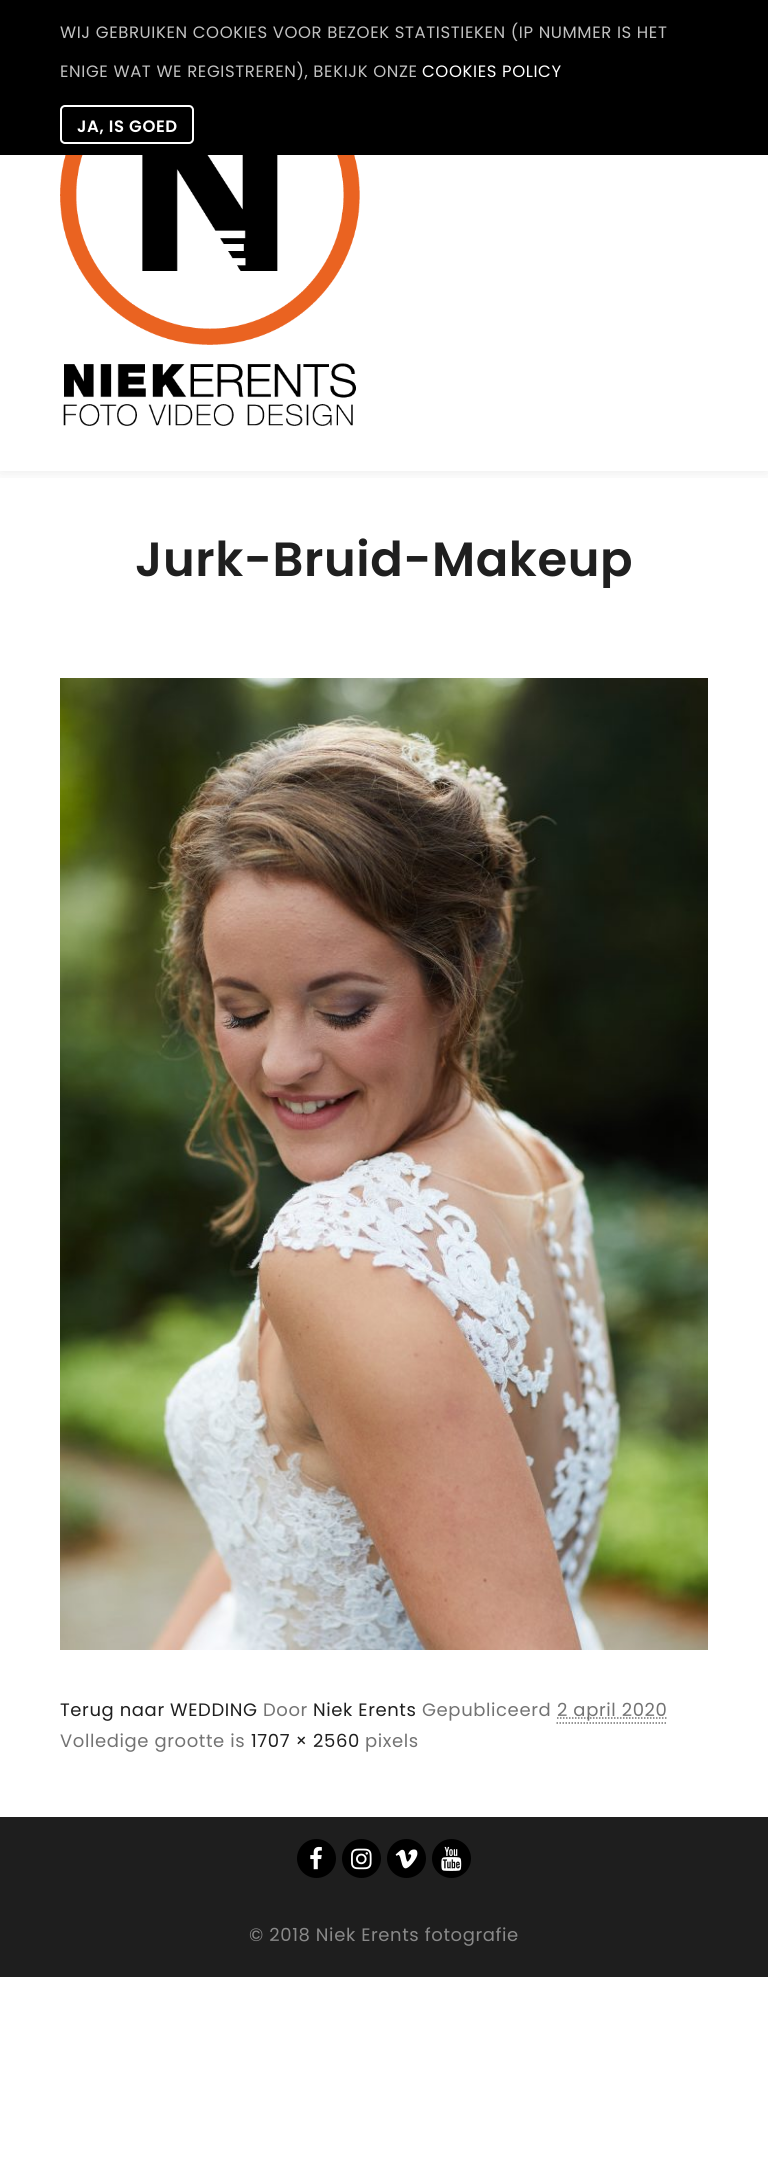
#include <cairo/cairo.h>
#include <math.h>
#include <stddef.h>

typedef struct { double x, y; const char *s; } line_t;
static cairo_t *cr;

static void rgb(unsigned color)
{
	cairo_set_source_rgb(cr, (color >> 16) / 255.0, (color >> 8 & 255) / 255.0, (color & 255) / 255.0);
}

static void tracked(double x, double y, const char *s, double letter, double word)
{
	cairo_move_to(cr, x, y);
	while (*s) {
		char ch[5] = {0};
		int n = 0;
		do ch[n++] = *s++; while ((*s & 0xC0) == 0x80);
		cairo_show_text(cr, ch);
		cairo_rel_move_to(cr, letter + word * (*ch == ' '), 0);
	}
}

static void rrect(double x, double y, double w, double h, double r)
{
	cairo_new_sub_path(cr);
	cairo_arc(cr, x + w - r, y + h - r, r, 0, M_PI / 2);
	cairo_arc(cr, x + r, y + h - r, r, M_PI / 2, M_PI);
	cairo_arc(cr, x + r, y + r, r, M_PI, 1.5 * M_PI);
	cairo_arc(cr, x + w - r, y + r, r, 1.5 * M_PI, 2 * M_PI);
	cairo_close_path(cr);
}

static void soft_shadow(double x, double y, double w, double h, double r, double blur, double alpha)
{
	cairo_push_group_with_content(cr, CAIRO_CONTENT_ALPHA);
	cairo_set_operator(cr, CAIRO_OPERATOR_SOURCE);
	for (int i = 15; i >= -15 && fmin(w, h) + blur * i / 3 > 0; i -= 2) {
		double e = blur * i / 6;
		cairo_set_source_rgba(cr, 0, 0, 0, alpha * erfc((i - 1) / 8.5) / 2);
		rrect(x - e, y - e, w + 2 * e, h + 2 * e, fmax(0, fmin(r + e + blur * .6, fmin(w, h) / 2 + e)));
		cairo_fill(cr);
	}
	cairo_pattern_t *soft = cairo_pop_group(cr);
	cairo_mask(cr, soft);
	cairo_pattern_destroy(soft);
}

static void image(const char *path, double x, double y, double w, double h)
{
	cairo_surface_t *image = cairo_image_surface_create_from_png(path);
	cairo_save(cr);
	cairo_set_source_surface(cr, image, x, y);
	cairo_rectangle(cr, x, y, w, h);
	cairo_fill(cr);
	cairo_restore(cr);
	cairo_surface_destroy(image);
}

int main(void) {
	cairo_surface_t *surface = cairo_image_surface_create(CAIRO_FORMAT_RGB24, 768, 2182);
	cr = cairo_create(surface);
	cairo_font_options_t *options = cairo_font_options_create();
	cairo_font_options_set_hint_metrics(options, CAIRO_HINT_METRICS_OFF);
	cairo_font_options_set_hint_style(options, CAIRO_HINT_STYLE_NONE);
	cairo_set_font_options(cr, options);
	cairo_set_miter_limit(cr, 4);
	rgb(0xffffff);
	cairo_paint(cr);
	cairo_save(cr);
	cairo_rectangle(cr, 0, 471, 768, 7);
	cairo_clip(cr);
	rgb(0x000000);
	soft_shadow(0, 0, 768, 471, 0, 9, 0.09);
	cairo_restore(cr);
	image("img/1.png", 60, 155, 300, 271);
	rgb(0x000000);
	cairo_rectangle(cr, 0, 0, 768, 155);
	cairo_fill(cr);
	rrect(61, 106, 132, 37, 4);
	rgb(0xffffff);
	cairo_stroke(cr);
	image("img/2.png", 60, 678, 648, 972);
	cairo_new_path(cr);
	cairo_move_to(cr, 556.5, 1723);
	cairo_line_to(cr, 667.5, 1723);
	rgb(0x737373);
	cairo_set_line_width(cr, 1.5);
	cairo_set_dash(cr, (double[]){1.5, 1.5}, 2, 0);
	cairo_stroke(cr);
	cairo_new_path(cr);
	cairo_move_to(cr, 557, 1718);
	cairo_line_to(cr, 667.5, 1718);
	cairo_stroke(cr);
	rgb(0x1e1e1e);
	cairo_rectangle(cr, 0, 1817, 768, 160);
	cairo_fill(cr);
	rgb(0x000000);
	cairo_arc(cr, 316.5, 1858.5, 19.5, 0, 2 * M_PI);
	cairo_fill(cr);
	image("img/3.png", 310, 1846, 12, 24);
	cairo_arc(cr, 361.5, 1858.5, 19.5, 0, 2 * M_PI);
	cairo_fill(cr);
	image("img/4.png", 351, 1848, 21, 22);
	cairo_arc(cr, 406.5, 1858.5, 19.5, 0, 2 * M_PI);
	cairo_fill(cr);
	image("img/5.png", 395, 1849, 23, 20);
	cairo_arc(cr, 451.5, 1858.5, 19.5, 0, 2 * M_PI);
	cairo_fill(cr);
	image("img/6.png", 441, 1846, 21, 25);
	cairo_select_font_face(cr, "Poppins", CAIRO_FONT_SLANT_NORMAL, CAIRO_FONT_WEIGHT_NORMAL);
	cairo_set_font_size(cr, 16.5);
	rgb(0xc1c1c1);
	tracked(60, 38, "WIJ GEBRUIKEN COOKIES VOOR BEZOEK STATISTIEKEN (IP NUMMER IS HET", 0.6, 0);
	tracked(60, 77, "ENIGE WAT WE REGISTREREN), BEKIJK ONZE", 0.6, 0);
	rgb(0xffffff);
	tracked(422, 77, "COOKIES POLICY", 0.6, 0);
	cairo_select_font_face(cr, "Poppins SemiBold", CAIRO_FONT_SLANT_NORMAL, CAIRO_FONT_WEIGHT_NORMAL);
	tracked(77, 132, "JA, IS GOED", 0.6, 0);
	cairo_save(cr);
	cairo_rectangle(cr, 60, 531, 648, 57);
	cairo_clip(cr);
	cairo_set_font_size(cr, 48);
	rgb(0x1f1f1f);
	tracked(135, 576, "Jurk-Bruid-Makeup", 0.6, 0);
	cairo_restore(cr);
	cairo_select_font_face(cr, "Poppins", CAIRO_FONT_SLANT_NORMAL, CAIRO_FONT_WEIGHT_NORMAL);
	cairo_set_font_size(cr, 18);
	rgb(0x1f1f1f);
	tracked(60, 1716, "Terug naar WEDDING", 0.6, 0);
	rgb(0x737373);
	tracked(263, 1716, "Door", 0.6, 0);
	rgb(0x1f1f1f);
	tracked(313, 1716, "Niek Erents", 0.6, 0);
	rgb(0x737373);
	{
		static const line_t items[] = {
			{422, 1716, "Gepubliceerd"},
			{557, 1716, "2 april 2020"},
			{60, 1747, "Volledige grootte is"},
		};
		for (size_t i = 0; i < sizeof items / sizeof *items; i++) {
			tracked(items[i].x, items[i].y, items[i].s, 0.6, 0);
		}
	}
	rgb(0x1f1f1f);
	tracked(251, 1747, "1707 × 2560", 0.6, 0);
	rgb(0x737373);
	tracked(365, 1747, "pixels", 0.6, 0);
	rgb(0x898989);
	tracked(249, 1941, "© 2018 Niek Erents fotografie", 0.6, 0);
	cairo_surface_write_to_png(surface, "page.png");
	cairo_font_options_destroy(options);
	cairo_destroy(cr);
	cairo_surface_destroy(surface);
	return 0;
}
